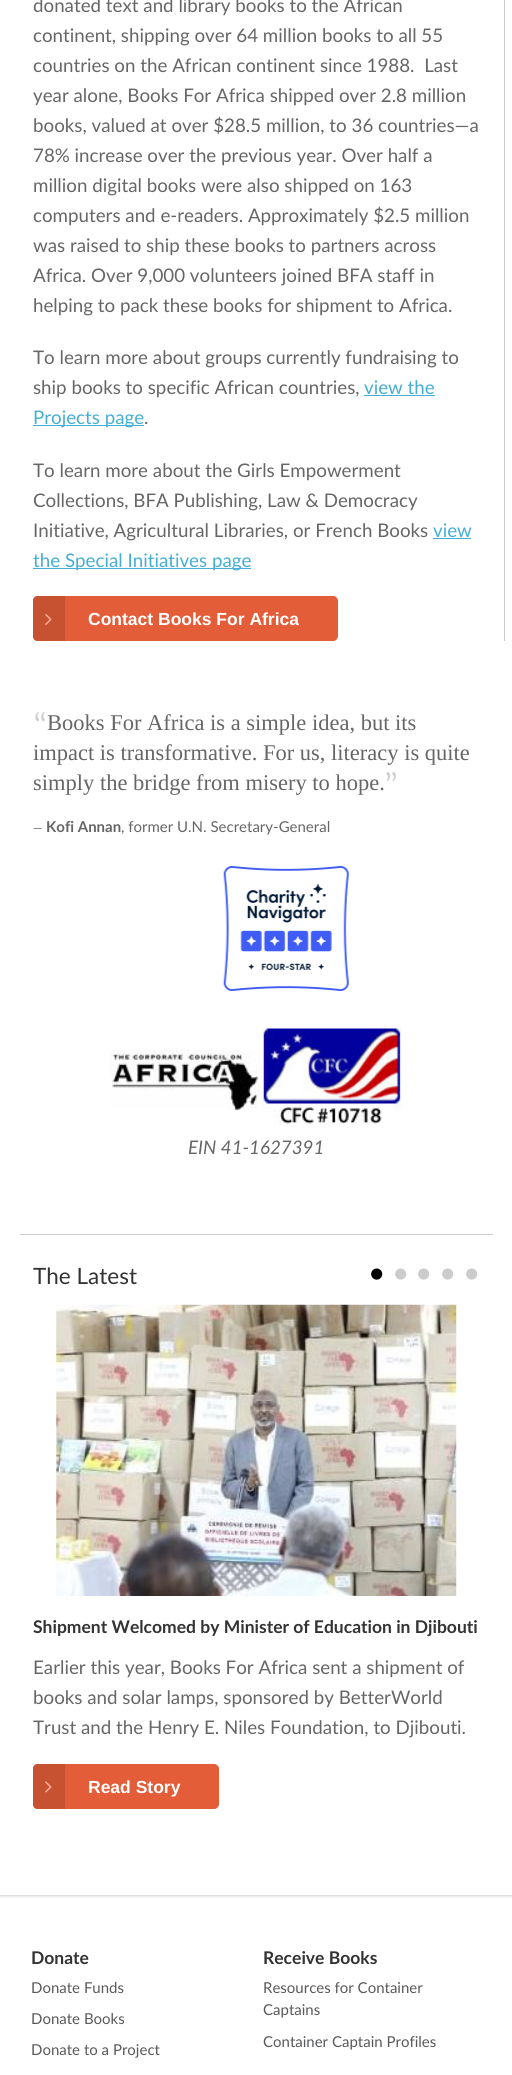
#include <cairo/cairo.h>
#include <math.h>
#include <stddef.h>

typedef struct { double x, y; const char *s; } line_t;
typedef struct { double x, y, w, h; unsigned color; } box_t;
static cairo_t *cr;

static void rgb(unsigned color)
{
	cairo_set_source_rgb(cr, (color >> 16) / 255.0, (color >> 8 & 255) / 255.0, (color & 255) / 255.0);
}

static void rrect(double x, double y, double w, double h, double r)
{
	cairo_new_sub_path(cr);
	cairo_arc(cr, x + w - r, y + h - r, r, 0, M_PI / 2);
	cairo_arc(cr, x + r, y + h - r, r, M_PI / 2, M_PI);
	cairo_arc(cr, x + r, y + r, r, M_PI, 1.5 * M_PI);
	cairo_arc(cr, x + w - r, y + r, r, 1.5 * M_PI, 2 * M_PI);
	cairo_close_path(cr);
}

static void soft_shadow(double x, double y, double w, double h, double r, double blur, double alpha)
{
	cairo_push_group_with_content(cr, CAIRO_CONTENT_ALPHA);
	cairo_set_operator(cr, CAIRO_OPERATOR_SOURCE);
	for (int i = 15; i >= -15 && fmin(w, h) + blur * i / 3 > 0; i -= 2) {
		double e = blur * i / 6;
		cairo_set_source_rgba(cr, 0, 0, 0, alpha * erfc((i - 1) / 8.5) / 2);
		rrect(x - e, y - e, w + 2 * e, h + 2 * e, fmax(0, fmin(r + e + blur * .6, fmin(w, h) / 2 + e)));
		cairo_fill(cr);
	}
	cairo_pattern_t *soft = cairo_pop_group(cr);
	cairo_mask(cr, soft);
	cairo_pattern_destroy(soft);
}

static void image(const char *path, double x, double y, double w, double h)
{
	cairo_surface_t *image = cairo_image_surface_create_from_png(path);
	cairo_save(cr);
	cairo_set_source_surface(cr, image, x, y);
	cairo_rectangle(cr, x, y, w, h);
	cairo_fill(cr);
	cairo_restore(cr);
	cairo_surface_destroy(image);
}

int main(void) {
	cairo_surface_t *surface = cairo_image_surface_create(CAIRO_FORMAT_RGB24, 512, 2075);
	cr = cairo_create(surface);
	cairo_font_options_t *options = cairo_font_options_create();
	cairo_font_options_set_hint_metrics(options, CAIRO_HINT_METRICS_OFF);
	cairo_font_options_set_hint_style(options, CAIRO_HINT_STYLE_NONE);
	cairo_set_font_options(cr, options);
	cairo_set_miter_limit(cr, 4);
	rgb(0xffffff);
	cairo_paint(cr);
	cairo_save(cr);
	cairo_rectangle(cr, 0, 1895, 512, 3);
	cairo_clip(cr);
	rgb(0x000000);
	soft_shadow(0, -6, 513, 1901, 0, 2, 0.3);
	cairo_restore(cr);
	{
		static const box_t items[] = {
			{504, 0, 1, 641, 0xcccccc},
			{364, 395, 71, 1, 0x45aed5},
			{33, 425, 111, 1, 0x45aed5},
			{433, 538, 38, 1, 0x45aed5},
			{33, 568, 218, 1, 0x45aed5},
		};
		for (size_t i = 0; i < sizeof items / sizeof *items; i++) {
			rgb(items[i].color);
			cairo_rectangle(cr, items[i].x, items[i].y, items[i].w, items[i].h);
			cairo_fill(cr);
		}
	}
	rgb(0xe35d38);
	rrect(33.5, 596.5, 304, 44, 4.5);
	cairo_fill_preserve(cr);
	cairo_set_line_width(cr, 1);
	cairo_stroke(cr);
	rgb(0xc75232);
	cairo_new_path(cr);
	cairo_move_to(cr, 38, 596);
	cairo_line_to(cr, 65, 596);
	cairo_line_to(cr, 65, 641);
	cairo_line_to(cr, 38, 641);
	cairo_curve_to(cr, 35, 641, 33, 639, 33, 636);
	cairo_line_to(cr, 33, 601);
	cairo_curve_to(cr, 33, 598, 35, 596, 38, 596);
	cairo_close_path(cr);
	cairo_fill(cr);
	image("img/1.png", 45, 614, 7, 11);
	image("img/2.png", 223, 866, 126, 125);
	image("img/3.png", 110, 1050, 149, 60);
	image("img/4.png", 262, 1028, 141, 96);
	rgb(0xcccccc);
	cairo_rectangle(cr, 20, 1234, 473, 1);
	cairo_fill(cr);
	image("img/5.png", 56, 1304, 401, 292);
	rgb(0xe35d38);
	rrect(33.5, 1764.5, 185, 44, 4.5);
	cairo_fill_preserve(cr);
	cairo_stroke(cr);
	rgb(0xc75232);
	cairo_new_path(cr);
	cairo_move_to(cr, 38, 1764);
	cairo_line_to(cr, 65, 1764);
	cairo_line_to(cr, 65, 1809);
	cairo_line_to(cr, 38, 1809);
	cairo_curve_to(cr, 35, 1809, 33, 1807, 33, 1804);
	cairo_line_to(cr, 33, 1769);
	cairo_curve_to(cr, 33, 1766, 35, 1764, 38, 1764);
	cairo_close_path(cr);
	cairo_fill(cr);
	image("img/6.png", 45, 1781, 7, 12);
	cairo_select_font_face(cr, "Lato", CAIRO_FONT_SLANT_NORMAL, CAIRO_FONT_WEIGHT_NORMAL);
	cairo_set_font_size(cr, 18.75);
	rgb(0x666666);
	{
		static const line_t items[] = {
			{33, 12, "donated text and library books to the African"},
			{33, 42, "continent, shipping over 64 million books to all 55"},
			{33, 72, "countries on the African continent since 1988.  Last"},
			{33, 102, "year alone, Books For Africa shipped over 2.8 million"},
			{33, 132, "books, valued at over $28.5 million, to 36 countries—a"},
			{33, 162, "78% increase over the previous year. Over half a"},
			{33, 192, "million digital books were also shipped on 163"},
			{33, 222, "computers and e-readers. Approximately $2.5 million"},
			{33, 252, "was raised to ship these books to partners across"},
			{33, 282, "Africa. Over 9,000 volunteers joined BFA staff in"},
			{33, 312, "helping to pack these books for shipment to Africa."},
			{33, 364, "To learn more about groups currently fundraising to"},
			{33, 394, "ship books to specific African countries,"},
		};
		for (size_t i = 0; i < sizeof items / sizeof *items; i++) {
			cairo_move_to(cr, items[i].x, items[i].y);
			cairo_show_text(cr, items[i].s);
		}
	}
	rgb(0x45aed5);
	cairo_move_to(cr, 364, 394);
	cairo_show_text(cr, "view the");
	cairo_move_to(cr, 33, 424);
	cairo_show_text(cr, "Projects page");
	rgb(0x666666);
	{
		static const line_t items[] = {
			{144, 424, "."},
			{33, 477, "To learn more about the Girls Empowerment"},
			{33, 507, "Collections, BFA Publishing, Law & Democracy"},
			{33, 537, "Initiative, Agricultural Libraries, or French Books"},
		};
		for (size_t i = 0; i < sizeof items / sizeof *items; i++) {
			cairo_move_to(cr, items[i].x, items[i].y);
			cairo_show_text(cr, items[i].s);
		}
	}
	rgb(0x45aed5);
	cairo_move_to(cr, 433, 537);
	cairo_show_text(cr, "view");
	cairo_move_to(cr, 33, 567);
	cairo_show_text(cr, "the Special Initiatives page");
	cairo_select_font_face(cr, "Liberation Sans", CAIRO_FONT_SLANT_NORMAL, CAIRO_FONT_WEIGHT_BOLD);
	cairo_set_font_size(cr, 17.5);
	rgb(0xffffff);
	cairo_move_to(cr, 88, 625);
	cairo_show_text(cr, "Contact Books For Africa");
	cairo_select_font_face(cr, "Merriweather", CAIRO_FONT_SLANT_NORMAL, CAIRO_FONT_WEIGHT_NORMAL);
	cairo_set_font_size(cr, 22.5);
	rgb(0xcccccc);
	cairo_move_to(cr, 33, 731);
	cairo_show_text(cr, "“");
	cairo_select_font_face(cr, "Liberation Serif", CAIRO_FONT_SLANT_NORMAL, CAIRO_FONT_WEIGHT_NORMAL);
	rgb(0x666666);
	{
		static const line_t items[] = {
			{47, 730, "Books For Africa is a simple idea, but its"},
			{33, 760, "impact is transformative. For us, literacy is quite"},
			{33, 790, "simply the bridge from misery to hope."},
		};
		for (size_t i = 0; i < sizeof items / sizeof *items; i++) {
			cairo_move_to(cr, items[i].x, items[i].y);
			cairo_show_text(cr, items[i].s);
		}
	}
	cairo_select_font_face(cr, "Merriweather", CAIRO_FONT_SLANT_NORMAL, CAIRO_FONT_WEIGHT_NORMAL);
	rgb(0xcccccc);
	cairo_move_to(cr, 384, 791);
	cairo_show_text(cr, "”");
	cairo_select_font_face(cr, "Lato", CAIRO_FONT_SLANT_NORMAL, CAIRO_FONT_WEIGHT_NORMAL);
	cairo_set_font_size(cr, 12);
	rgb(0x666666);
	cairo_move_to(cr, 33, 832);
	cairo_show_text(cr, "—");
	cairo_select_font_face(cr, "Lato", CAIRO_FONT_SLANT_NORMAL, CAIRO_FONT_WEIGHT_BOLD);
	cairo_set_font_size(cr, 15);
	cairo_move_to(cr, 46, 832);
	cairo_show_text(cr, "Kofi Annan");
	cairo_select_font_face(cr, "Lato", CAIRO_FONT_SLANT_NORMAL, CAIRO_FONT_WEIGHT_NORMAL);
	cairo_move_to(cr, 121, 832);
	cairo_show_text(cr, ", former U.N. Secretary-General");
	cairo_select_font_face(cr, "Lato", CAIRO_FONT_SLANT_ITALIC, CAIRO_FONT_WEIGHT_NORMAL);
	cairo_set_font_size(cr, 18.75);
	cairo_move_to(cr, 188, 1154);
	cairo_show_text(cr, "EIN 41-1627391");
	cairo_select_font_face(cr, "Lato", CAIRO_FONT_SLANT_NORMAL, CAIRO_FONT_WEIGHT_NORMAL);
	cairo_set_font_size(cr, 22.5);
	rgb(0x333333);
	cairo_move_to(cr, 33, 1284);
	cairo_show_text(cr, "The Latest");
	cairo_set_font_size(cr, 30);
	rgb(0x000000);
	cairo_move_to(cr, 368, 1283);
	cairo_show_text(cr, "•");
	rgb(0xcccccc);
	{
		static const line_t items[] = {
			{392, 1283, "•"},
			{415, 1283, "•"},
			{439, 1283, "•"},
			{463, 1283, "•"},
		};
		for (size_t i = 0; i < sizeof items / sizeof *items; i++) {
			cairo_move_to(cr, items[i].x, items[i].y);
			cairo_show_text(cr, items[i].s);
		}
	}
	cairo_select_font_face(cr, "Lato", CAIRO_FONT_SLANT_NORMAL, CAIRO_FONT_WEIGHT_BOLD);
	cairo_set_font_size(cr, 17.5);
	rgb(0x333333);
	cairo_move_to(cr, 33, 1633);
	cairo_show_text(cr, "Shipment Welcomed by Minister of Education in Djibouti");
	cairo_select_font_face(cr, "Lato", CAIRO_FONT_SLANT_NORMAL, CAIRO_FONT_WEIGHT_NORMAL);
	cairo_set_font_size(cr, 18.75);
	rgb(0x666666);
	{
		static const line_t items[] = {
			{33, 1674, "Earlier this year, Books For Africa sent a shipment of"},
			{33, 1704, "books and solar lamps, sponsored by BetterWorld"},
			{33, 1734, "Trust and the Henry E. Niles Foundation, to Djibouti."},
		};
		for (size_t i = 0; i < sizeof items / sizeof *items; i++) {
			cairo_move_to(cr, items[i].x, items[i].y);
			cairo_show_text(cr, items[i].s);
		}
	}
	cairo_select_font_face(cr, "Liberation Sans", CAIRO_FONT_SLANT_NORMAL, CAIRO_FONT_WEIGHT_BOLD);
	cairo_set_font_size(cr, 17.5);
	rgb(0xffffff);
	cairo_move_to(cr, 88, 1793);
	cairo_show_text(cr, "Read Story");
	cairo_select_font_face(cr, "Lato", CAIRO_FONT_SLANT_NORMAL, CAIRO_FONT_WEIGHT_BOLD);
	rgb(0x333333);
	cairo_move_to(cr, 31, 1964);
	cairo_show_text(cr, "Donate");
	cairo_select_font_face(cr, "Lato", CAIRO_FONT_SLANT_NORMAL, CAIRO_FONT_WEIGHT_NORMAL);
	cairo_set_font_size(cr, 15);
	rgb(0x58595b);
	{
		static const line_t items[] = {
			{31, 1993, "Donate Funds"},
			{31, 2024, "Donate Books"},
			{31, 2055, "Donate to a Project"},
		};
		for (size_t i = 0; i < sizeof items / sizeof *items; i++) {
			cairo_move_to(cr, items[i].x, items[i].y);
			cairo_show_text(cr, items[i].s);
		}
	}
	cairo_select_font_face(cr, "Lato", CAIRO_FONT_SLANT_NORMAL, CAIRO_FONT_WEIGHT_BOLD);
	cairo_set_font_size(cr, 17.5);
	rgb(0x333333);
	cairo_move_to(cr, 263, 1964);
	cairo_show_text(cr, "Receive Books");
	cairo_select_font_face(cr, "Lato", CAIRO_FONT_SLANT_NORMAL, CAIRO_FONT_WEIGHT_NORMAL);
	cairo_set_font_size(cr, 15);
	rgb(0x58595b);
	{
		static const line_t items[] = {
			{263, 1993, "Resources for Container"},
			{263, 2015, "Captains"},
			{263, 2047, "Container Captain Profiles"},
		};
		for (size_t i = 0; i < sizeof items / sizeof *items; i++) {
			cairo_move_to(cr, items[i].x, items[i].y);
			cairo_show_text(cr, items[i].s);
		}
	}
	cairo_surface_write_to_png(surface, "page.png");
	cairo_font_options_destroy(options);
	cairo_destroy(cr);
	cairo_surface_destroy(surface);
	return 0;
}
